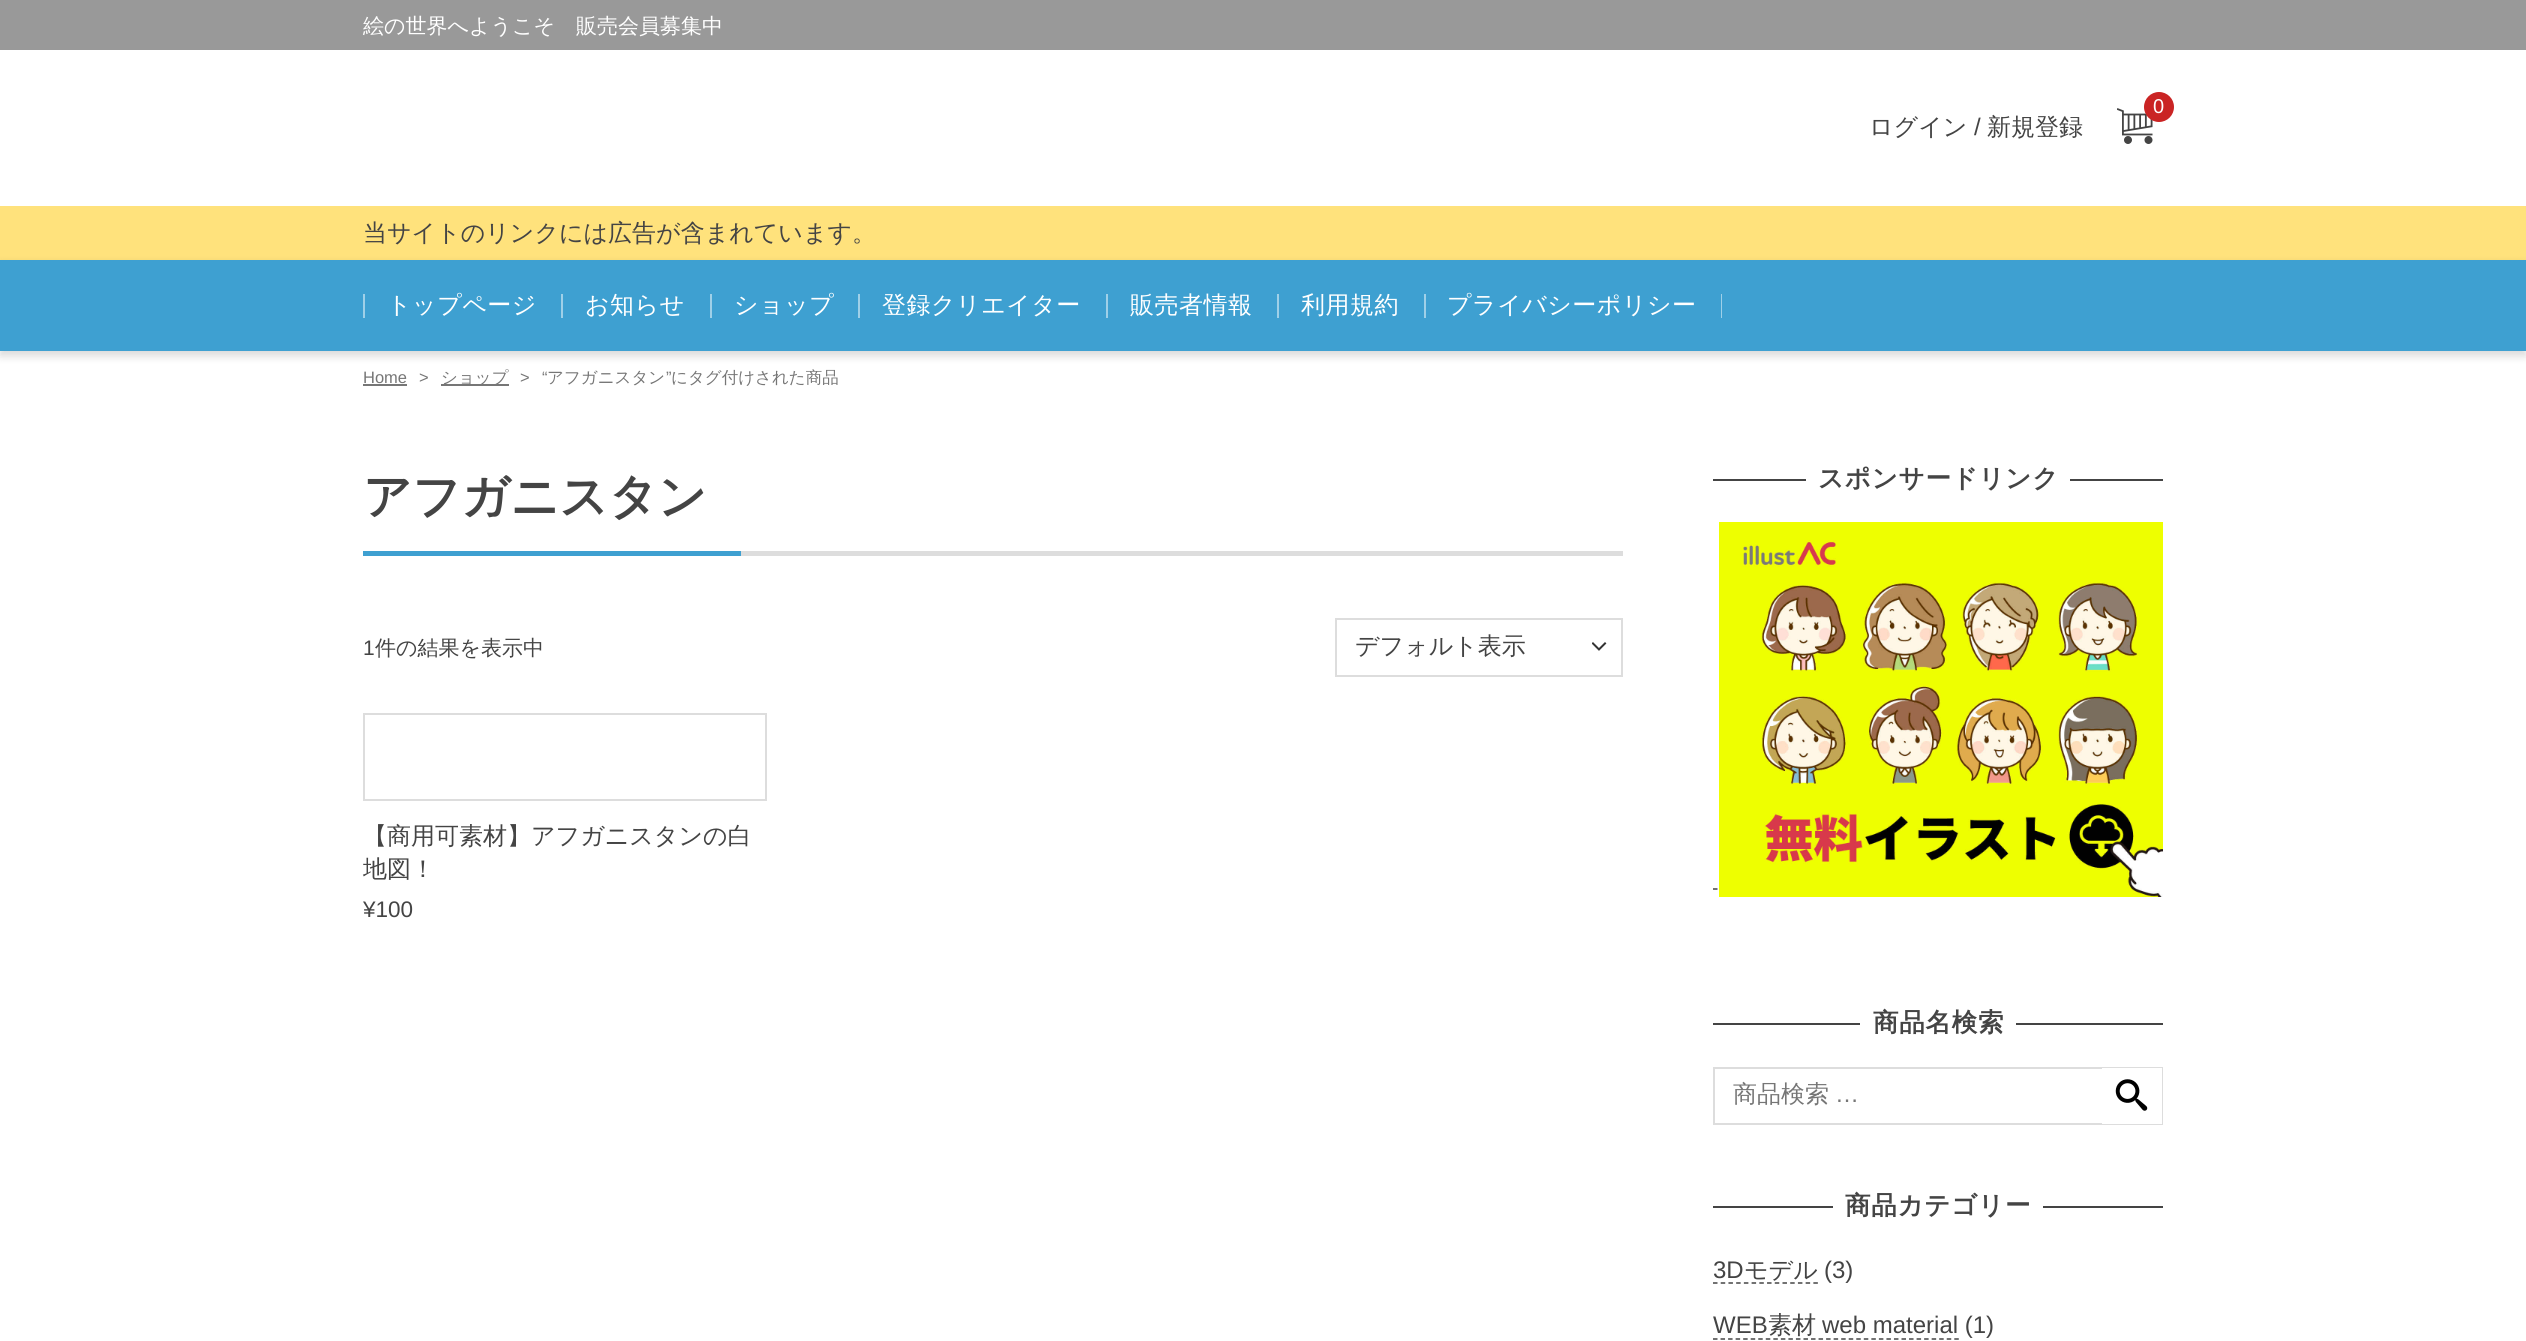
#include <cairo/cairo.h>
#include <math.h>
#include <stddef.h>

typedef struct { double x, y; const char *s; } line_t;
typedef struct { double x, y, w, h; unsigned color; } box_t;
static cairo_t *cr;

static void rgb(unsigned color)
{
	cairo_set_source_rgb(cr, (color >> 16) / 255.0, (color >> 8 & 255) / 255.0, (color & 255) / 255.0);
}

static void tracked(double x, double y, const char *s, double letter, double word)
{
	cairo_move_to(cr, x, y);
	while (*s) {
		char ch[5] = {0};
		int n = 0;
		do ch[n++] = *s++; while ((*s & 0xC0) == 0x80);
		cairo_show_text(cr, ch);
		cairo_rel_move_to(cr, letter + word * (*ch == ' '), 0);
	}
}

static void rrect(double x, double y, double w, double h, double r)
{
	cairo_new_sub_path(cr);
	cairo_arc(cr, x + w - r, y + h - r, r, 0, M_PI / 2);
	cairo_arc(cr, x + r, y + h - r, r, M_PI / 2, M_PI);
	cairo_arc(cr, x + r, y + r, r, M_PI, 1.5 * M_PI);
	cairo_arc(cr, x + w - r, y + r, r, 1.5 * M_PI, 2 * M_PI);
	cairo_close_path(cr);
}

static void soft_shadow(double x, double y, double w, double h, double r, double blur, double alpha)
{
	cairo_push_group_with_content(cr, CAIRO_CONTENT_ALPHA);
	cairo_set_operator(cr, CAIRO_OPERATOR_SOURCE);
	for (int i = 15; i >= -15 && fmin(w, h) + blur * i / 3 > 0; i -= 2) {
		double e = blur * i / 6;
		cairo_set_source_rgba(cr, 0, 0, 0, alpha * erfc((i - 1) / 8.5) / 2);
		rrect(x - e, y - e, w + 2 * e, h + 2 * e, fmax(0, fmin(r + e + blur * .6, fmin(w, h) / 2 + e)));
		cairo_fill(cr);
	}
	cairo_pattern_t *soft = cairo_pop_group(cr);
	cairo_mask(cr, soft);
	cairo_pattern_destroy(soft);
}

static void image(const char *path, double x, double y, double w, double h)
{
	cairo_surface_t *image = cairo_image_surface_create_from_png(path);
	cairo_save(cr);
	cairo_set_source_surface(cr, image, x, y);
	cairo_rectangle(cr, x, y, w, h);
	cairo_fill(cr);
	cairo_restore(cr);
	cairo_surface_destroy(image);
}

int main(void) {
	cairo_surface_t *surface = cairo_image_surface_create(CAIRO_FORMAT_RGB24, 2526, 1341);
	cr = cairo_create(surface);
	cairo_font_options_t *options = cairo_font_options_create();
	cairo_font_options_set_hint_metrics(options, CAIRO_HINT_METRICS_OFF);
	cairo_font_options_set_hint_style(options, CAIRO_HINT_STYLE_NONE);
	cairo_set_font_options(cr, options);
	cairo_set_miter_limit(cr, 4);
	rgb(0xffffff);
	cairo_paint(cr);
	rgb(0x999999);
	cairo_rectangle(cr, 0, 0, 2526, 50);
	cairo_fill(cr);
	image("img/1.png", 2117, 108, 36, 36);
	rgb(0xca2424);
	cairo_arc(cr, 2159, 107, 15, 0, 2 * M_PI);
	cairo_fill(cr);
	rgb(0xffe27c);
	cairo_rectangle(cr, 0, 206, 2526, 54);
	cairo_fill(cr);
	rgb(0x000000);
	soft_shadow(0, 264, 2526, 92, 0, 4.5, 0.15);
	{
		static const box_t items[] = {
			{0, 260, 2526, 91, 0x3ea0d1},
			{363, 294, 2, 24, 0x9fd0e8},
			{561, 294, 2, 24, 0x9fd0e8},
			{710, 294, 2, 24, 0x9fd0e8},
			{858, 294, 2, 24, 0x9fd0e8},
			{1106, 294, 2, 24, 0x9fd0e8},
			{1277, 294, 2, 24, 0x9fd0e8},
			{1424, 294, 2, 24, 0x9fd0e8},
			{1721, 294, 1, 24, 0x9fd0e8},
			{363, 384, 44, 2, 0x767676},
			{441, 384, 68, 2, 0x767676},
			{741, 551, 882, 5, 0xdddddd},
			{363, 551, 378, 5, 0x3ea0d1},
		};
		for (size_t i = 0; i < sizeof items / sizeof *items; i++) {
			rgb(items[i].color);
			cairo_rectangle(cr, items[i].x, items[i].y, items[i].w, items[i].h);
			cairo_fill(cr);
		}
	}
	image("img/2.png", 1592, 642, 15, 9);
	cairo_rectangle(cr, 1336, 619, 286, 57);
	rgb(0xdddddd);
	cairo_stroke(cr);
	cairo_rectangle(cr, 364, 714, 402, 86);
	cairo_stroke(cr);
	rgb(0x444444);
	cairo_rectangle(cr, 1713, 479, 93, 2);
	cairo_fill(cr);
	cairo_rectangle(cr, 2070, 479, 93, 2);
	cairo_fill(cr);
	cairo_save(cr);
	cairo_rectangle(cr, 1713, 461, 450, 480);
	cairo_clip(cr);
	cairo_new_path(cr);
	cairo_move_to(cr, 1713, 889);
	cairo_line_to(cr, 2175, 889);
	cairo_set_line_width(cr, 1.5);
	cairo_set_dash(cr, (double[]){4.5, 3}, 2, 0);
	cairo_stroke(cr);
	cairo_restore(cr);
	image("img/3.png", 1719, 522, 444, 375);
	cairo_rectangle(cr, 1713, 1023, 147, 2);
	cairo_fill(cr);
	cairo_rectangle(cr, 2016, 1023, 147, 2);
	cairo_fill(cr);
	cairo_rectangle(cr, 1714, 1068, 448, 56);
	rgb(0xdddddd);
	cairo_stroke(cr);
	rgb(0xffffff);
	cairo_rectangle(cr, 2102, 1068, 60, 56);
	cairo_fill(cr);
	image("img/4.png", 2115, 1079, 33, 32);
	rgb(0x444444);
	cairo_rectangle(cr, 1713, 1206, 120, 2);
	cairo_fill(cr);
	cairo_rectangle(cr, 2043, 1206, 120, 2);
	cairo_fill(cr);
	cairo_new_path(cr);
	cairo_move_to(cr, 1713, 1283);
	cairo_line_to(cr, 1818, 1283);
	cairo_set_line_width(cr, 1.5);
	cairo_set_dash(cr, (double[]){4.5, 3.22}, 2, 0);
	cairo_stroke(cr);
	cairo_new_path(cr);
	cairo_move_to(cr, 1713, 1339);
	cairo_line_to(cr, 1959, 1339);
	cairo_set_dash(cr, (double[]){4.5, 3.04}, 2, 0);
	cairo_stroke(cr);
	cairo_select_font_face(cr, "WenQuanYi Zen Hei Medium", CAIRO_FONT_SLANT_NORMAL, CAIRO_FONT_WEIGHT_NORMAL);
	cairo_set_font_size(cr, 21);
	rgb(0xffffff);
	cairo_move_to(cr, 363, 33);
	cairo_show_text(cr, "絵の世界へようこそ　販売会員募集中");
	cairo_select_font_face(cr, "Liberation Sans", CAIRO_FONT_SLANT_NORMAL, CAIRO_FONT_WEIGHT_NORMAL);
	cairo_set_font_size(cr, 20);
	cairo_move_to(cr, 2153, 113);
	cairo_show_text(cr, "0");
	cairo_select_font_face(cr, "WenQuanYi Zen Hei Medium", CAIRO_FONT_SLANT_NORMAL, CAIRO_FONT_WEIGHT_NORMAL);
	cairo_set_font_size(cr, 24);
	rgb(0x444444);
	cairo_move_to(cr, 1869, 135);
	cairo_show_text(cr, "ログイン");
	cairo_select_font_face(cr, "Liberation Sans", CAIRO_FONT_SLANT_NORMAL, CAIRO_FONT_WEIGHT_NORMAL);
	cairo_move_to(cr, 1974, 135);
	cairo_show_text(cr, "/");
	cairo_select_font_face(cr, "WenQuanYi Zen Hei Medium", CAIRO_FONT_SLANT_NORMAL, CAIRO_FONT_WEIGHT_NORMAL);
	cairo_move_to(cr, 1987, 135);
	cairo_show_text(cr, "新規登録");
	cairo_move_to(cr, 363, 241);
	cairo_show_text(cr, "当サイトのリンクには広告が含まれています。");
	rgb(0xffffff);
	{
		static const line_t items[] = {
			{387, 313, "トップページ"},
			{585, 313, "お知らせ"},
			{734, 313, "ショップ"},
			{882, 313, "登録クリエイター"},
			{1130, 313, "販売者情報"},
			{1301, 313, "利用規約"},
			{1447, 313, "プライバシーポリシー"},
		};
		for (size_t i = 0; i < sizeof items / sizeof *items; i++) {
			tracked(items[i].x, items[i].y, items[i].s, 0.5, 0);
		}
	}
	cairo_select_font_face(cr, "Liberation Sans", CAIRO_FONT_SLANT_NORMAL, CAIRO_FONT_WEIGHT_NORMAL);
	cairo_set_font_size(cr, 16.5);
	rgb(0x767676);
	cairo_move_to(cr, 363, 383);
	cairo_show_text(cr, "Home");
	cairo_move_to(cr, 419, 383);
	cairo_show_text(cr, ">");
	cairo_select_font_face(cr, "WenQuanYi Zen Hei Medium", CAIRO_FONT_SLANT_NORMAL, CAIRO_FONT_WEIGHT_NORMAL);
	cairo_move_to(cr, 441, 383);
	cairo_show_text(cr, "ショップ");
	cairo_select_font_face(cr, "Liberation Sans", CAIRO_FONT_SLANT_NORMAL, CAIRO_FONT_WEIGHT_NORMAL);
	cairo_move_to(cr, 520, 383);
	cairo_show_text(cr, ">");
	cairo_move_to(cr, 542, 383);
	cairo_show_text(cr, "“");
	cairo_select_font_face(cr, "WenQuanYi Zen Hei Medium", CAIRO_FONT_SLANT_NORMAL, CAIRO_FONT_WEIGHT_NORMAL);
	cairo_move_to(cr, 547, 383);
	cairo_show_text(cr, "アフガニスタン");
	cairo_select_font_face(cr, "Liberation Sans", CAIRO_FONT_SLANT_NORMAL, CAIRO_FONT_WEIGHT_NORMAL);
	cairo_move_to(cr, 666, 383);
	cairo_show_text(cr, "”");
	cairo_select_font_face(cr, "WenQuanYi Zen Hei Medium", CAIRO_FONT_SLANT_NORMAL, CAIRO_FONT_WEIGHT_NORMAL);
	cairo_move_to(cr, 671, 383);
	cairo_show_text(cr, "にタグ付けされた商品");
	cairo_select_font_face(cr, "WenQuanYi Zen Hei", CAIRO_FONT_SLANT_NORMAL, CAIRO_FONT_WEIGHT_BOLD);
	cairo_set_font_size(cr, 48);
	rgb(0x444444);
	cairo_move_to(cr, 363, 513);
	cairo_show_text(cr, "アフガニスタン");
	cairo_select_font_face(cr, "Liberation Sans", CAIRO_FONT_SLANT_NORMAL, CAIRO_FONT_WEIGHT_NORMAL);
	cairo_set_font_size(cr, 21);
	cairo_move_to(cr, 363, 655);
	cairo_show_text(cr, "1");
	cairo_select_font_face(cr, "WenQuanYi Zen Hei Medium", CAIRO_FONT_SLANT_NORMAL, CAIRO_FONT_WEIGHT_NORMAL);
	cairo_move_to(cr, 375, 655);
	cairo_show_text(cr, "件の結果を表示中");
	cairo_set_font_size(cr, 24);
	{
		static const line_t items[] = {
			{1355, 654, "デフォルト表示"},
			{363, 844, "【商用可素材】アフガニスタンの白"},
			{363, 877, "地図！"},
		};
		for (size_t i = 0; i < sizeof items / sizeof *items; i++) {
			cairo_move_to(cr, items[i].x, items[i].y);
			cairo_show_text(cr, items[i].s);
		}
	}
	cairo_select_font_face(cr, "Liberation Sans", CAIRO_FONT_SLANT_NORMAL, CAIRO_FONT_WEIGHT_NORMAL);
	cairo_set_font_size(cr, 22.5);
	cairo_move_to(cr, 363, 917);
	cairo_show_text(cr, "¥100");
	cairo_select_font_face(cr, "WenQuanYi Zen Hei", CAIRO_FONT_SLANT_NORMAL, CAIRO_FONT_WEIGHT_BOLD);
	cairo_set_font_size(cr, 25.5);
	tracked(1818, 487, "スポンサードリンク", 0.75, 0);
	tracked(1873, 1031, "商品名検索", 0.75, 0);
	cairo_select_font_face(cr, "WenQuanYi Zen Hei Medium", CAIRO_FONT_SLANT_NORMAL, CAIRO_FONT_WEIGHT_NORMAL);
	cairo_set_font_size(cr, 24);
	rgb(0x767676);
	cairo_move_to(cr, 1733, 1102);
	cairo_show_text(cr, "商品検索");
	cairo_select_font_face(cr, "Liberation Sans", CAIRO_FONT_SLANT_NORMAL, CAIRO_FONT_WEIGHT_NORMAL);
	cairo_move_to(cr, 1835, 1102);
	cairo_show_text(cr, "…");
	cairo_select_font_face(cr, "WenQuanYi Zen Hei", CAIRO_FONT_SLANT_NORMAL, CAIRO_FONT_WEIGHT_BOLD);
	cairo_set_font_size(cr, 25.5);
	rgb(0x444444);
	tracked(1845, 1214, "商品カテゴリー", 0.75, 0);
	cairo_select_font_face(cr, "Liberation Sans", CAIRO_FONT_SLANT_NORMAL, CAIRO_FONT_WEIGHT_NORMAL);
	cairo_set_font_size(cr, 24);
	cairo_move_to(cr, 1713, 1278);
	cairo_show_text(cr, "3D");
	cairo_select_font_face(cr, "WenQuanYi Zen Hei Medium", CAIRO_FONT_SLANT_NORMAL, CAIRO_FONT_WEIGHT_NORMAL);
	cairo_move_to(cr, 1744, 1278);
	cairo_show_text(cr, "モデル");
	cairo_select_font_face(cr, "Liberation Sans", CAIRO_FONT_SLANT_NORMAL, CAIRO_FONT_WEIGHT_NORMAL);
	cairo_move_to(cr, 1824, 1278);
	cairo_show_text(cr, "(3)");
	cairo_move_to(cr, 1713, 1333);
	cairo_show_text(cr, "WEB");
	cairo_select_font_face(cr, "WenQuanYi Zen Hei Medium", CAIRO_FONT_SLANT_NORMAL, CAIRO_FONT_WEIGHT_NORMAL);
	cairo_move_to(cr, 1768, 1333);
	cairo_show_text(cr, "素材");
	cairo_select_font_face(cr, "Liberation Sans", CAIRO_FONT_SLANT_NORMAL, CAIRO_FONT_WEIGHT_NORMAL);
	cairo_move_to(cr, 1822, 1333);
	cairo_show_text(cr, "web material (1)");
	cairo_surface_write_to_png(surface, "page.png");
	cairo_font_options_destroy(options);
	cairo_destroy(cr);
	cairo_surface_destroy(surface);
	return 0;
}
